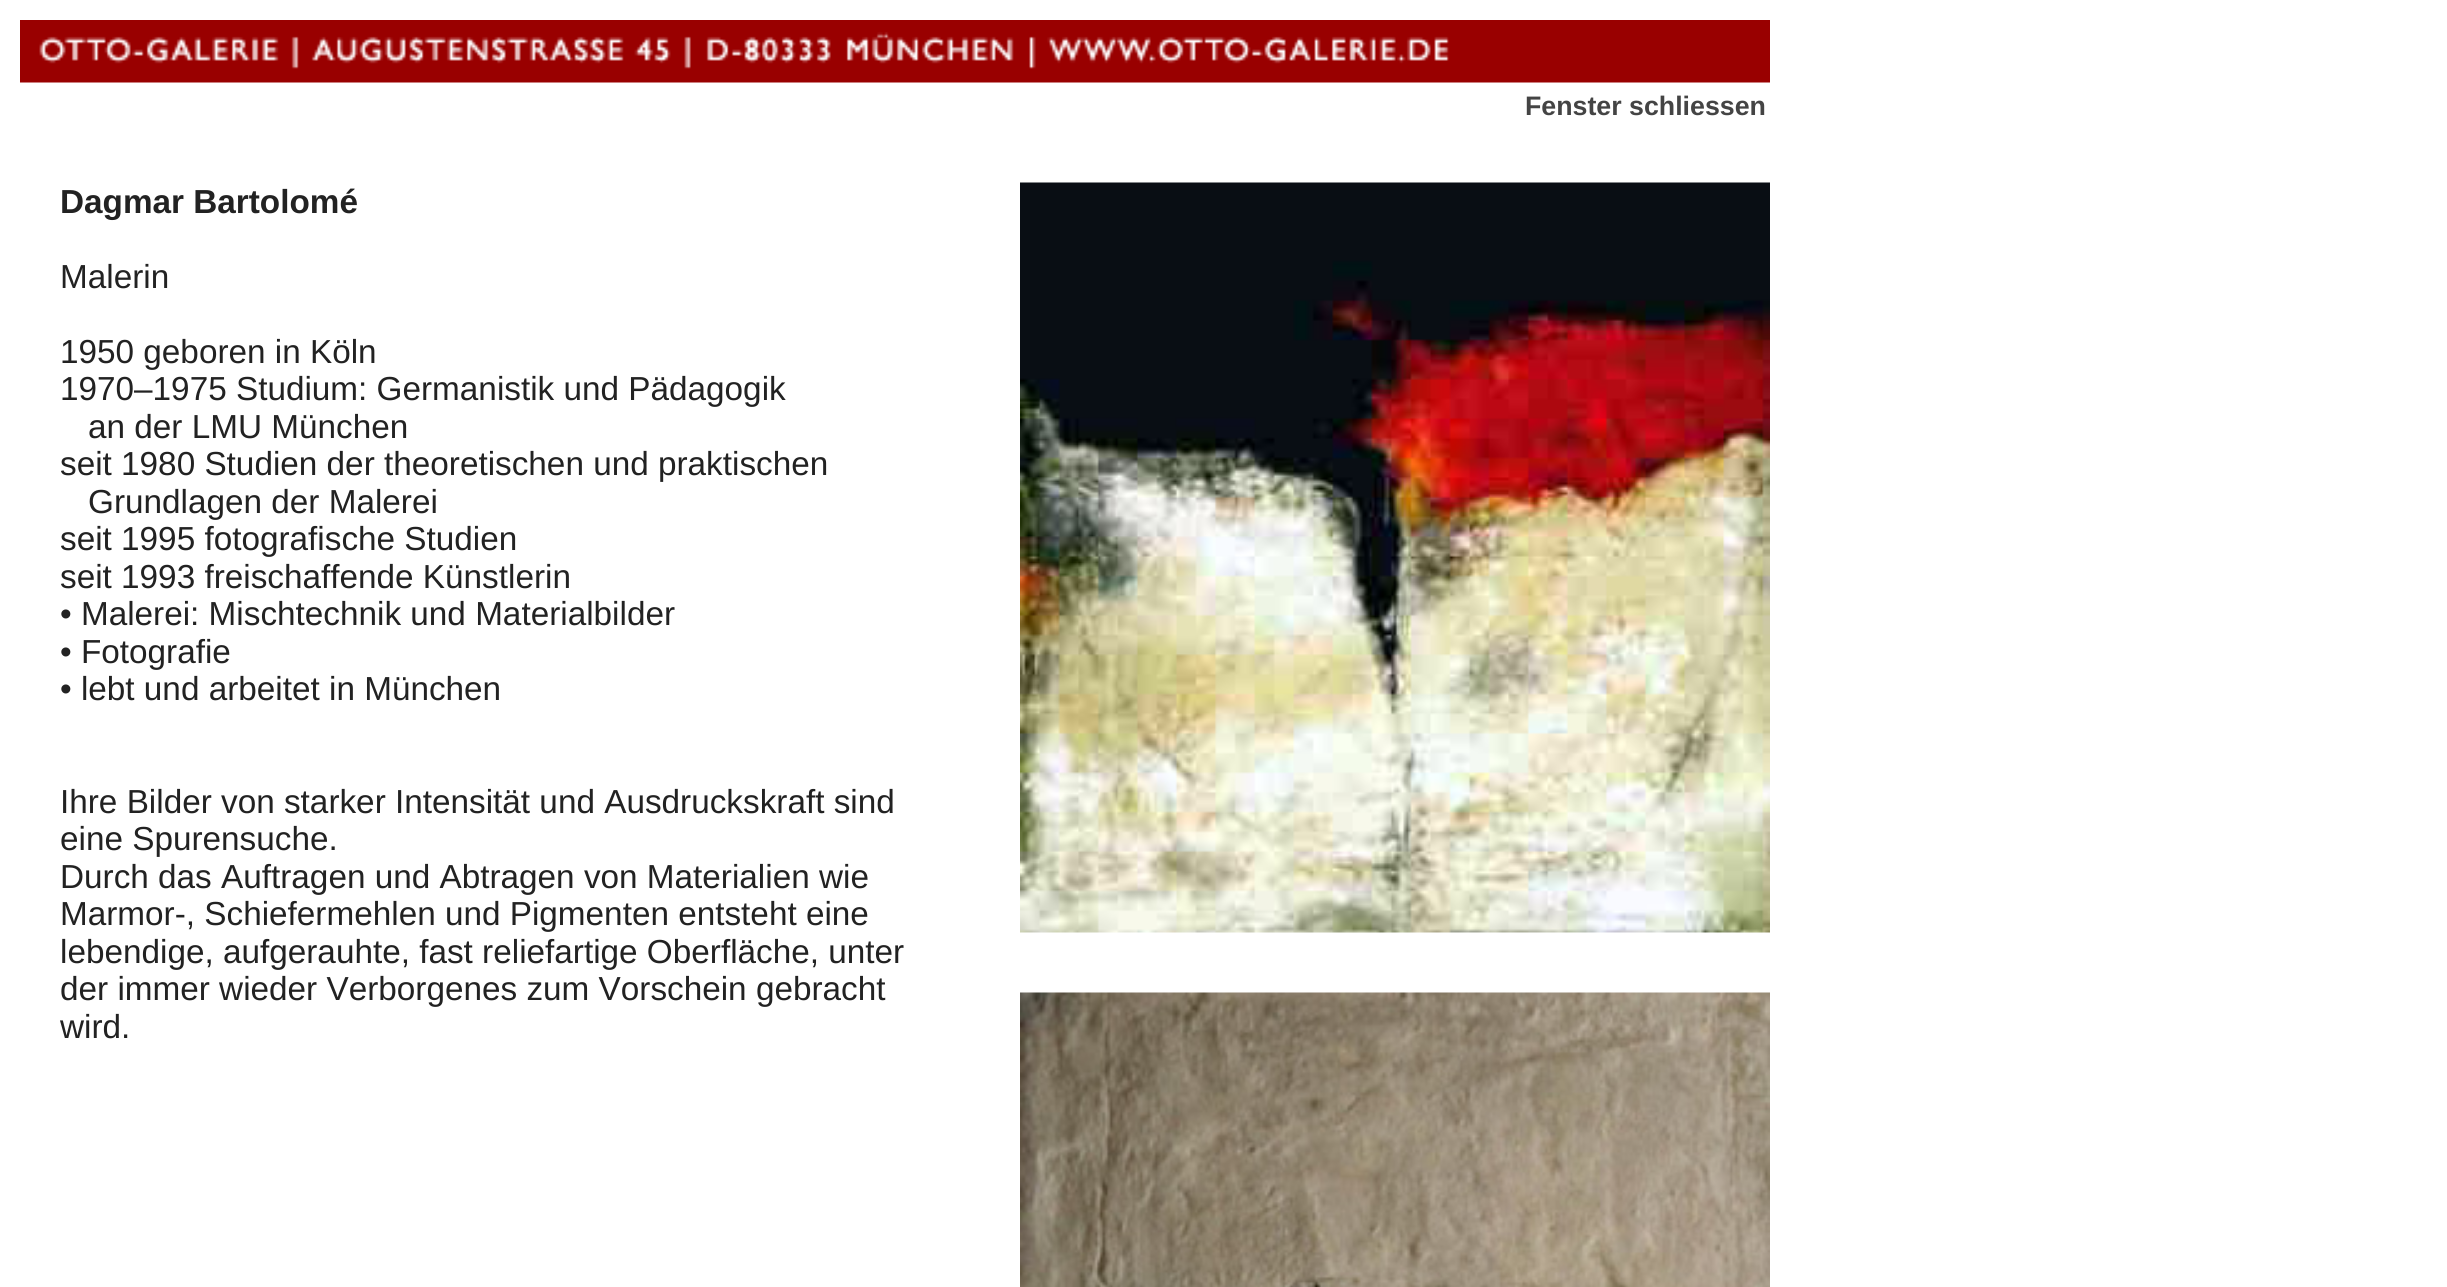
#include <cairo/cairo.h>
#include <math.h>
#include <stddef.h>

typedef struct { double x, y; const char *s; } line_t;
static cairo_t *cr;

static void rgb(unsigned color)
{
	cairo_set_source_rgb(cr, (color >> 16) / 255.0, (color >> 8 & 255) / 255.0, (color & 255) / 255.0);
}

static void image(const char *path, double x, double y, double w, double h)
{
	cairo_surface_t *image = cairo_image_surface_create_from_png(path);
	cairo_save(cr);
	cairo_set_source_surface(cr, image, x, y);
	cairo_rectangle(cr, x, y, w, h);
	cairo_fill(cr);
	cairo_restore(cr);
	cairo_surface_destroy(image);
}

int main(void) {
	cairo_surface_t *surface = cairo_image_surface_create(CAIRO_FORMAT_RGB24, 2447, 1287);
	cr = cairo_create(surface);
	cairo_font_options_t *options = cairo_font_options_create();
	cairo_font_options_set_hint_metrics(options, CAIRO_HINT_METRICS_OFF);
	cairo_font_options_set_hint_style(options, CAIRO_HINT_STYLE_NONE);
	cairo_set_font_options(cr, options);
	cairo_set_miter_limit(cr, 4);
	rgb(0xffffff);
	cairo_paint(cr);
	image("img/1.png", 20, 20, 1750, 63);
	image("img/2.png", 1020, 182, 750, 751);
	image("img/3.png", 1020, 992, 750, 295);
	cairo_select_font_face(cr, "Liberation Sans", CAIRO_FONT_SLANT_NORMAL, CAIRO_FONT_WEIGHT_BOLD);
	cairo_set_font_size(cr, 26.75);
	rgb(0x444444);
	cairo_move_to(cr, 1525, 115);
	cairo_show_text(cr, "Fenster schliessen");
	cairo_set_font_size(cr, 33.3);
	rgb(0x222222);
	cairo_move_to(cr, 60, 213);
	cairo_show_text(cr, "Dagmar Bartolomé");
	cairo_select_font_face(cr, "Liberation Sans", CAIRO_FONT_SLANT_NORMAL, CAIRO_FONT_WEIGHT_NORMAL);
	{
		static const line_t items[] = {
			{60, 288, "Malerin"},
			{60, 363, "1950 geboren in Köln"},
			{60, 400, "1970–1975 Studium: Germanistik und Pädagogik"},
			{88, 438, "an der LMU München"},
			{60, 475, "seit 1980 Studien der theoretischen und praktischen"},
			{88, 513, "Grundlagen der Malerei"},
			{60, 550, "seit 1995 fotografische Studien"},
			{60, 588, "seit 1993 freischaffende Künstlerin"},
			{60, 625, "• Malerei: Mischtechnik und Materialbilder"},
			{60, 663, "• Fotografie"},
			{60, 700, "• lebt und arbeitet in München"},
			{60, 813, "Ihre Bilder von starker Intensität und Ausdruckskraft sind"},
			{60, 850, "eine Spurensuche."},
			{60, 888, "Durch das Auftragen und Abtragen von Materialien wie"},
			{60, 925, "Marmor-, Schiefermehlen und Pigmenten entsteht eine"},
			{60, 963, "lebendige, aufgerauhte, fast reliefartige Oberfläche, unter"},
			{60, 1000, "der immer wieder Verborgenes zum Vorschein gebracht"},
			{60, 1038, "wird."},
		};
		for (size_t i = 0; i < sizeof items / sizeof *items; i++) {
			cairo_move_to(cr, items[i].x, items[i].y);
			cairo_show_text(cr, items[i].s);
		}
	}
	cairo_surface_write_to_png(surface, "page.png");
	cairo_font_options_destroy(options);
	cairo_destroy(cr);
	cairo_surface_destroy(surface);
	return 0;
}
